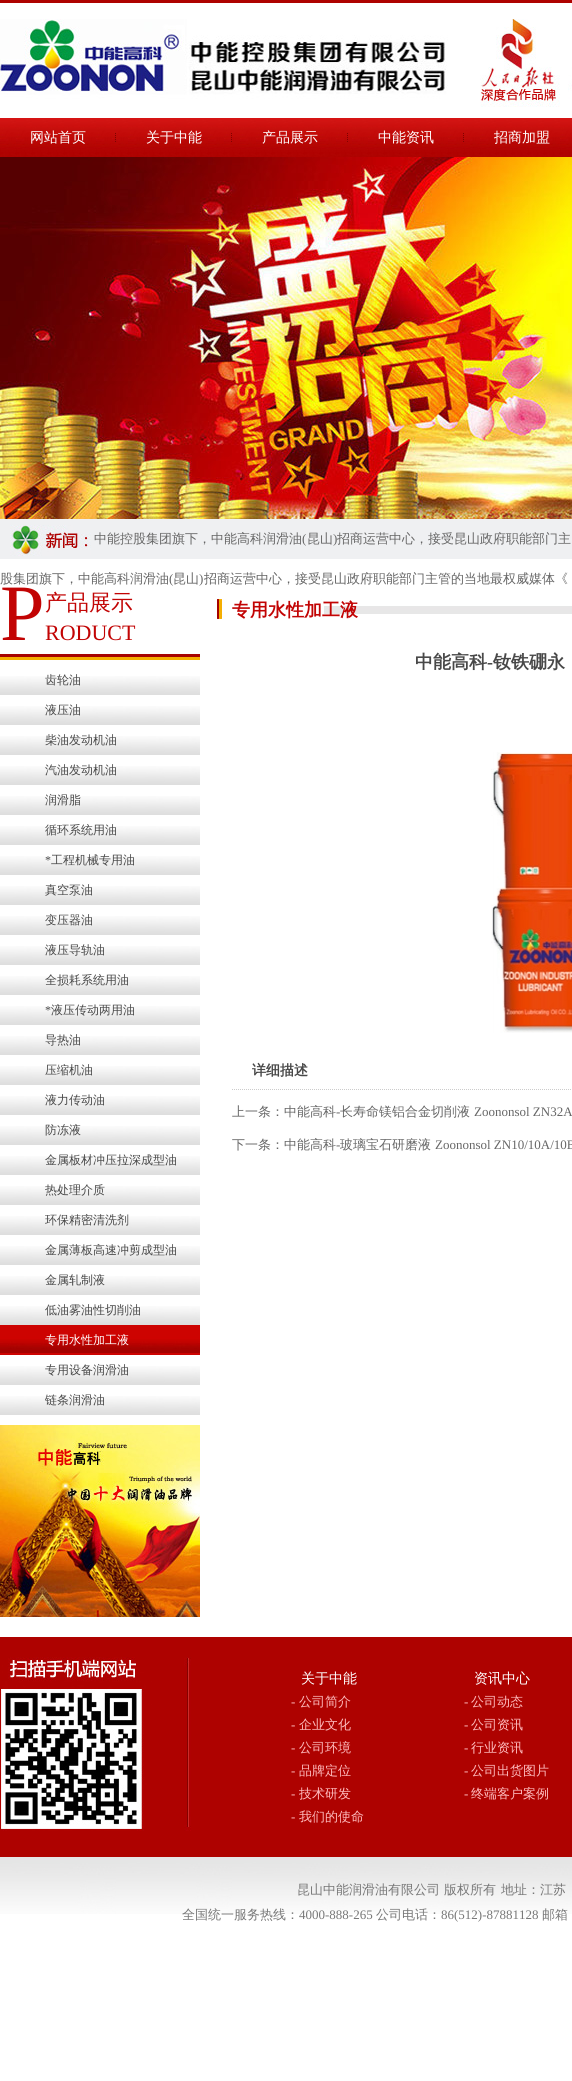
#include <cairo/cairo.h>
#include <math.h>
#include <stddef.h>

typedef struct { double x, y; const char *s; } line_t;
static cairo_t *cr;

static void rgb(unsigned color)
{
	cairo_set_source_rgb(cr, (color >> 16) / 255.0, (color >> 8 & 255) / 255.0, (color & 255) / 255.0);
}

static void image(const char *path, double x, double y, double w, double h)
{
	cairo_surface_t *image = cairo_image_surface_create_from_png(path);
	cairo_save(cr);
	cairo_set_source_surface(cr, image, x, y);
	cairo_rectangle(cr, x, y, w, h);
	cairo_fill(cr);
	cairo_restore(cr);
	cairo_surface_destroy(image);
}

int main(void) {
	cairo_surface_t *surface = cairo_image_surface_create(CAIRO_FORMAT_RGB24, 572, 2081);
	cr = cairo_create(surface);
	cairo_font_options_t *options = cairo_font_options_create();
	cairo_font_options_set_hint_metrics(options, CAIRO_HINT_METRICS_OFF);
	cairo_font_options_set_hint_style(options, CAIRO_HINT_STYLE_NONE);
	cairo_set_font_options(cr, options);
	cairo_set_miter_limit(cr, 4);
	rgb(0xffffff);
	cairo_paint(cr);
	rgb(0xae0200);
	cairo_rectangle(cr, 0, 0, 572, 3);
	cairo_fill(cr);
	image("img/1.png", 0, 19, 572, 88);
	image("img/2.png", 0, 118, 572, 39);
	image("img/3.png", 115, 133, 1, 9);
	image("img/3.png", 231, 133, 1, 9);
	image("img/3.png", 347, 133, 1, 9);
	image("img/3.png", 463, 133, 1, 9);
	image("img/4.png", 0, 157, 572, 362);
	rgb(0xeff0f2);
	cairo_rectangle(cr, 0, 519, 572, 40);
	cairo_fill(cr);
	image("img/5.png", 10, 525, 81, 31);
	rgb(0xa60201);
	cairo_rectangle(cr, 0, 654, 200, 3);
	cairo_fill(cr);
	rgb(0xf4ae00);
	cairo_rectangle(cr, 0, 657, 200, 3);
	cairo_fill(cr);
	image("img/6.png", 0, 676, 200, 19);
	image("img/6.png", 0, 706, 200, 19);
	image("img/6.png", 0, 736, 200, 19);
	image("img/6.png", 0, 766, 200, 19);
	image("img/6.png", 0, 796, 200, 19);
	image("img/6.png", 0, 826, 200, 19);
	image("img/6.png", 0, 856, 200, 19);
	image("img/6.png", 0, 886, 200, 19);
	image("img/6.png", 0, 916, 200, 19);
	image("img/6.png", 0, 946, 200, 19);
	image("img/6.png", 0, 976, 200, 19);
	image("img/6.png", 0, 1006, 200, 19);
	image("img/6.png", 0, 1036, 200, 19);
	image("img/6.png", 0, 1066, 200, 19);
	image("img/6.png", 0, 1096, 200, 19);
	image("img/6.png", 0, 1126, 200, 19);
	image("img/6.png", 0, 1156, 200, 19);
	image("img/6.png", 0, 1186, 200, 19);
	image("img/6.png", 0, 1216, 200, 19);
	image("img/6.png", 0, 1246, 200, 19);
	image("img/6.png", 0, 1276, 200, 19);
	image("img/6.png", 0, 1306, 200, 19);
	image("img/7.png", 0, 1325, 200, 30);
	image("img/6.png", 0, 1366, 200, 19);
	image("img/6.png", 0, 1396, 200, 19);
	image("img/8.png", 0, 1425, 200, 192);
	image("img/9.png", 217, 599, 355, 21);
	image("img/10.png", 491, 752, 81, 281);
	cairo_new_path(cr);
	cairo_move_to(cr, 232, 1089.5);
	cairo_line_to(cr, 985, 1089.5);
	rgb(0xcccccc);
	cairo_set_line_width(cr, 1);
	cairo_set_dash(cr, (double[]){1, 1}, 2, 0);
	cairo_stroke(cr);
	rgb(0xae0200);
	cairo_rectangle(cr, 0, 1637, 572, 220);
	cairo_fill(cr);
	image("img/11.png", 0, 1657, 191, 174);
	image("img/12.png", 0, 1857, 572, 57);
	cairo_select_font_face(cr, "WenQuanYi Zen Hei Medium", CAIRO_FONT_SLANT_NORMAL, CAIRO_FONT_WEIGHT_NORMAL);
	cairo_set_font_size(cr, 14);
	rgb(0xffffff);
	{
		static const line_t items[] = {
			{30, 142, "网站首页"},
			{146, 142, "关于中能"},
			{262, 142, "产品展示"},
			{378, 142, "中能资讯"},
			{494, 142, "招商加盟"},
		};
		for (size_t i = 0; i < sizeof items / sizeof *items; i++) {
			cairo_move_to(cr, items[i].x, items[i].y);
			cairo_show_text(cr, items[i].s);
		}
	}
	cairo_set_font_size(cr, 13);
	rgb(0x666666);
	cairo_move_to(cr, 94, 543);
	cairo_show_text(cr, "中能控股集团旗下，中能高科润滑油");
	cairo_select_font_face(cr, "Liberation Serif", CAIRO_FONT_SLANT_NORMAL, CAIRO_FONT_WEIGHT_NORMAL);
	cairo_move_to(cr, 302, 543);
	cairo_show_text(cr, "(");
	cairo_select_font_face(cr, "WenQuanYi Zen Hei Medium", CAIRO_FONT_SLANT_NORMAL, CAIRO_FONT_WEIGHT_NORMAL);
	cairo_move_to(cr, 307, 543);
	cairo_show_text(cr, "昆山");
	cairo_select_font_face(cr, "Liberation Serif", CAIRO_FONT_SLANT_NORMAL, CAIRO_FONT_WEIGHT_NORMAL);
	cairo_move_to(cr, 333, 543);
	cairo_show_text(cr, ")");
	cairo_select_font_face(cr, "WenQuanYi Zen Hei Medium", CAIRO_FONT_SLANT_NORMAL, CAIRO_FONT_WEIGHT_NORMAL);
	cairo_move_to(cr, 337, 543);
	cairo_show_text(cr, "招商运营中心，接受昆山政府职能部门主");
	cairo_move_to(cr, 0, 583);
	cairo_show_text(cr, "股集团旗下，中能高科润滑油");
	cairo_select_font_face(cr, "Liberation Serif", CAIRO_FONT_SLANT_NORMAL, CAIRO_FONT_WEIGHT_NORMAL);
	cairo_move_to(cr, 169, 583);
	cairo_show_text(cr, "(");
	cairo_select_font_face(cr, "WenQuanYi Zen Hei Medium", CAIRO_FONT_SLANT_NORMAL, CAIRO_FONT_WEIGHT_NORMAL);
	cairo_move_to(cr, 173, 583);
	cairo_show_text(cr, "昆山");
	cairo_select_font_face(cr, "Liberation Serif", CAIRO_FONT_SLANT_NORMAL, CAIRO_FONT_WEIGHT_NORMAL);
	cairo_move_to(cr, 199, 583);
	cairo_show_text(cr, ")");
	cairo_select_font_face(cr, "WenQuanYi Zen Hei Medium", CAIRO_FONT_SLANT_NORMAL, CAIRO_FONT_WEIGHT_NORMAL);
	cairo_move_to(cr, 204, 583);
	cairo_show_text(cr, "招商运营中心，接受昆山政府职能部门主管的当地最权威媒体《");
	cairo_select_font_face(cr, "Liberation Serif", CAIRO_FONT_SLANT_NORMAL, CAIRO_FONT_WEIGHT_NORMAL);
	cairo_set_font_size(cr, 80);
	rgb(0xc20404);
	cairo_move_to(cr, 0, 640);
	cairo_show_text(cr, "P");
	cairo_select_font_face(cr, "WenQuanYi Zen Hei Medium", CAIRO_FONT_SLANT_NORMAL, CAIRO_FONT_WEIGHT_NORMAL);
	cairo_set_font_size(cr, 22);
	cairo_move_to(cr, 45, 610);
	cairo_show_text(cr, "产品展示");
	cairo_select_font_face(cr, "Liberation Serif", CAIRO_FONT_SLANT_NORMAL, CAIRO_FONT_WEIGHT_NORMAL);
	cairo_move_to(cr, 45, 640);
	cairo_show_text(cr, "RODUCT");
	cairo_select_font_face(cr, "WenQuanYi Zen Hei Medium", CAIRO_FONT_SLANT_NORMAL, CAIRO_FONT_WEIGHT_NORMAL);
	cairo_set_font_size(cr, 12);
	rgb(0x484848);
	{
		static const line_t items[] = {
			{45, 684, "齿轮油"},
			{45, 714, "液压油"},
			{45, 744, "柴油发动机油"},
			{45, 774, "汽油发动机油"},
			{45, 804, "润滑脂"},
			{45, 834, "循环系统用油"},
		};
		for (size_t i = 0; i < sizeof items / sizeof *items; i++) {
			cairo_move_to(cr, items[i].x, items[i].y);
			cairo_show_text(cr, items[i].s);
		}
	}
	cairo_select_font_face(cr, "Liberation Serif", CAIRO_FONT_SLANT_NORMAL, CAIRO_FONT_WEIGHT_NORMAL);
	cairo_move_to(cr, 45, 864);
	cairo_show_text(cr, "*");
	cairo_select_font_face(cr, "WenQuanYi Zen Hei Medium", CAIRO_FONT_SLANT_NORMAL, CAIRO_FONT_WEIGHT_NORMAL);
	{
		static const line_t items[] = {
			{51, 864, "工程机械专用油"},
			{45, 894, "真空泵油"},
			{45, 924, "变压器油"},
			{45, 954, "液压导轨油"},
			{45, 984, "全损耗系统用油"},
		};
		for (size_t i = 0; i < sizeof items / sizeof *items; i++) {
			cairo_move_to(cr, items[i].x, items[i].y);
			cairo_show_text(cr, items[i].s);
		}
	}
	cairo_select_font_face(cr, "Liberation Serif", CAIRO_FONT_SLANT_NORMAL, CAIRO_FONT_WEIGHT_NORMAL);
	cairo_move_to(cr, 45, 1014);
	cairo_show_text(cr, "*");
	cairo_select_font_face(cr, "WenQuanYi Zen Hei Medium", CAIRO_FONT_SLANT_NORMAL, CAIRO_FONT_WEIGHT_NORMAL);
	{
		static const line_t items[] = {
			{51, 1014, "液压传动两用油"},
			{45, 1044, "导热油"},
			{45, 1074, "压缩机油"},
			{45, 1104, "液力传动油"},
			{45, 1134, "防冻液"},
			{45, 1164, "金属板材冲压拉深成型油"},
			{45, 1194, "热处理介质"},
			{45, 1224, "环保精密清洗剂"},
			{45, 1254, "金属薄板高速冲剪成型油"},
			{45, 1284, "金属轧制液"},
			{45, 1314, "低油雾油性切削油"},
		};
		for (size_t i = 0; i < sizeof items / sizeof *items; i++) {
			cairo_move_to(cr, items[i].x, items[i].y);
			cairo_show_text(cr, items[i].s);
		}
	}
	rgb(0xffffff);
	cairo_move_to(cr, 45, 1344);
	cairo_show_text(cr, "专用水性加工液");
	rgb(0x484848);
	cairo_move_to(cr, 45, 1374);
	cairo_show_text(cr, "专用设备润滑油");
	cairo_move_to(cr, 45, 1404);
	cairo_show_text(cr, "链条润滑油");
	cairo_select_font_face(cr, "WenQuanYi Zen Hei", CAIRO_FONT_SLANT_NORMAL, CAIRO_FONT_WEIGHT_BOLD);
	cairo_set_font_size(cr, 18);
	rgb(0xc20404);
	cairo_move_to(cr, 232, 616);
	cairo_show_text(cr, "专用水性加工液");
	rgb(0x484848);
	cairo_move_to(cr, 415, 668);
	cairo_show_text(cr, "中能高科");
	cairo_select_font_face(cr, "Liberation Serif", CAIRO_FONT_SLANT_NORMAL, CAIRO_FONT_WEIGHT_BOLD);
	cairo_move_to(cr, 487, 668);
	cairo_show_text(cr, "-");
	cairo_select_font_face(cr, "WenQuanYi Zen Hei", CAIRO_FONT_SLANT_NORMAL, CAIRO_FONT_WEIGHT_BOLD);
	cairo_move_to(cr, 493, 668);
	cairo_show_text(cr, "钕铁硼永");
	cairo_set_font_size(cr, 14);
	cairo_move_to(cr, 252, 1075);
	cairo_show_text(cr, "详细描述");
	cairo_select_font_face(cr, "WenQuanYi Zen Hei Medium", CAIRO_FONT_SLANT_NORMAL, CAIRO_FONT_WEIGHT_NORMAL);
	cairo_set_font_size(cr, 13);
	rgb(0x666666);
	cairo_move_to(cr, 232, 1116);
	cairo_show_text(cr, "上一条：中能高科");
	cairo_select_font_face(cr, "Liberation Serif", CAIRO_FONT_SLANT_NORMAL, CAIRO_FONT_WEIGHT_NORMAL);
	cairo_move_to(cr, 336, 1116);
	cairo_show_text(cr, "-");
	cairo_select_font_face(cr, "WenQuanYi Zen Hei Medium", CAIRO_FONT_SLANT_NORMAL, CAIRO_FONT_WEIGHT_NORMAL);
	cairo_move_to(cr, 340, 1116);
	cairo_show_text(cr, "长寿命镁铝合金切削液");
	cairo_select_font_face(cr, "Liberation Serif", CAIRO_FONT_SLANT_NORMAL, CAIRO_FONT_WEIGHT_NORMAL);
	cairo_move_to(cr, 474, 1116);
	cairo_show_text(cr, "Zoononsol ZN32A");
	cairo_select_font_face(cr, "WenQuanYi Zen Hei Medium", CAIRO_FONT_SLANT_NORMAL, CAIRO_FONT_WEIGHT_NORMAL);
	cairo_move_to(cr, 232, 1149);
	cairo_show_text(cr, "下一条：中能高科");
	cairo_select_font_face(cr, "Liberation Serif", CAIRO_FONT_SLANT_NORMAL, CAIRO_FONT_WEIGHT_NORMAL);
	cairo_move_to(cr, 336, 1149);
	cairo_show_text(cr, "-");
	cairo_select_font_face(cr, "WenQuanYi Zen Hei Medium", CAIRO_FONT_SLANT_NORMAL, CAIRO_FONT_WEIGHT_NORMAL);
	cairo_move_to(cr, 340, 1149);
	cairo_show_text(cr, "玻璃宝石研磨液");
	cairo_select_font_face(cr, "Liberation Serif", CAIRO_FONT_SLANT_NORMAL, CAIRO_FONT_WEIGHT_NORMAL);
	cairo_move_to(cr, 435, 1149);
	cairo_show_text(cr, "Zoononsol ZN10/10A/10B");
	cairo_select_font_face(cr, "WenQuanYi Zen Hei Medium", CAIRO_FONT_SLANT_NORMAL, CAIRO_FONT_WEIGHT_NORMAL);
	cairo_set_font_size(cr, 14);
	rgb(0xffffff);
	cairo_move_to(cr, 301, 1683);
	cairo_show_text(cr, "关于中能");
	cairo_select_font_face(cr, "Liberation Serif", CAIRO_FONT_SLANT_NORMAL, CAIRO_FONT_WEIGHT_NORMAL);
	cairo_set_font_size(cr, 13);
	rgb(0xfebcbe);
	cairo_move_to(cr, 291, 1706);
	cairo_show_text(cr, "-");
	cairo_select_font_face(cr, "WenQuanYi Zen Hei Medium", CAIRO_FONT_SLANT_NORMAL, CAIRO_FONT_WEIGHT_NORMAL);
	cairo_move_to(cr, 299, 1706);
	cairo_show_text(cr, "公司简介");
	cairo_select_font_face(cr, "Liberation Serif", CAIRO_FONT_SLANT_NORMAL, CAIRO_FONT_WEIGHT_NORMAL);
	cairo_move_to(cr, 291, 1729);
	cairo_show_text(cr, "-");
	cairo_select_font_face(cr, "WenQuanYi Zen Hei Medium", CAIRO_FONT_SLANT_NORMAL, CAIRO_FONT_WEIGHT_NORMAL);
	cairo_move_to(cr, 299, 1729);
	cairo_show_text(cr, "企业文化");
	cairo_select_font_face(cr, "Liberation Serif", CAIRO_FONT_SLANT_NORMAL, CAIRO_FONT_WEIGHT_NORMAL);
	cairo_move_to(cr, 291, 1752);
	cairo_show_text(cr, "-");
	cairo_select_font_face(cr, "WenQuanYi Zen Hei Medium", CAIRO_FONT_SLANT_NORMAL, CAIRO_FONT_WEIGHT_NORMAL);
	cairo_move_to(cr, 299, 1752);
	cairo_show_text(cr, "公司环境");
	cairo_select_font_face(cr, "Liberation Serif", CAIRO_FONT_SLANT_NORMAL, CAIRO_FONT_WEIGHT_NORMAL);
	cairo_move_to(cr, 291, 1775);
	cairo_show_text(cr, "-");
	cairo_select_font_face(cr, "WenQuanYi Zen Hei Medium", CAIRO_FONT_SLANT_NORMAL, CAIRO_FONT_WEIGHT_NORMAL);
	cairo_move_to(cr, 299, 1775);
	cairo_show_text(cr, "品牌定位");
	cairo_select_font_face(cr, "Liberation Serif", CAIRO_FONT_SLANT_NORMAL, CAIRO_FONT_WEIGHT_NORMAL);
	cairo_move_to(cr, 291, 1798);
	cairo_show_text(cr, "-");
	cairo_select_font_face(cr, "WenQuanYi Zen Hei Medium", CAIRO_FONT_SLANT_NORMAL, CAIRO_FONT_WEIGHT_NORMAL);
	cairo_move_to(cr, 299, 1798);
	cairo_show_text(cr, "技术研发");
	cairo_select_font_face(cr, "Liberation Serif", CAIRO_FONT_SLANT_NORMAL, CAIRO_FONT_WEIGHT_NORMAL);
	cairo_move_to(cr, 291, 1821);
	cairo_show_text(cr, "-");
	cairo_select_font_face(cr, "WenQuanYi Zen Hei Medium", CAIRO_FONT_SLANT_NORMAL, CAIRO_FONT_WEIGHT_NORMAL);
	cairo_move_to(cr, 299, 1821);
	cairo_show_text(cr, "我们的使命");
	cairo_set_font_size(cr, 14);
	rgb(0xffffff);
	cairo_move_to(cr, 474, 1683);
	cairo_show_text(cr, "资讯中心");
	cairo_select_font_face(cr, "Liberation Serif", CAIRO_FONT_SLANT_NORMAL, CAIRO_FONT_WEIGHT_NORMAL);
	cairo_set_font_size(cr, 13);
	rgb(0xfebcbe);
	cairo_move_to(cr, 464, 1706);
	cairo_show_text(cr, "-");
	cairo_select_font_face(cr, "WenQuanYi Zen Hei Medium", CAIRO_FONT_SLANT_NORMAL, CAIRO_FONT_WEIGHT_NORMAL);
	cairo_move_to(cr, 471, 1706);
	cairo_show_text(cr, "公司动态");
	cairo_select_font_face(cr, "Liberation Serif", CAIRO_FONT_SLANT_NORMAL, CAIRO_FONT_WEIGHT_NORMAL);
	cairo_move_to(cr, 464, 1729);
	cairo_show_text(cr, "-");
	cairo_select_font_face(cr, "WenQuanYi Zen Hei Medium", CAIRO_FONT_SLANT_NORMAL, CAIRO_FONT_WEIGHT_NORMAL);
	cairo_move_to(cr, 471, 1729);
	cairo_show_text(cr, "公司资讯");
	cairo_select_font_face(cr, "Liberation Serif", CAIRO_FONT_SLANT_NORMAL, CAIRO_FONT_WEIGHT_NORMAL);
	cairo_move_to(cr, 464, 1752);
	cairo_show_text(cr, "-");
	cairo_select_font_face(cr, "WenQuanYi Zen Hei Medium", CAIRO_FONT_SLANT_NORMAL, CAIRO_FONT_WEIGHT_NORMAL);
	cairo_move_to(cr, 471, 1752);
	cairo_show_text(cr, "行业资讯");
	cairo_select_font_face(cr, "Liberation Serif", CAIRO_FONT_SLANT_NORMAL, CAIRO_FONT_WEIGHT_NORMAL);
	cairo_move_to(cr, 464, 1775);
	cairo_show_text(cr, "-");
	cairo_select_font_face(cr, "WenQuanYi Zen Hei Medium", CAIRO_FONT_SLANT_NORMAL, CAIRO_FONT_WEIGHT_NORMAL);
	cairo_move_to(cr, 471, 1775);
	cairo_show_text(cr, "公司出货图片");
	cairo_select_font_face(cr, "Liberation Serif", CAIRO_FONT_SLANT_NORMAL, CAIRO_FONT_WEIGHT_NORMAL);
	cairo_move_to(cr, 464, 1798);
	cairo_show_text(cr, "-");
	cairo_select_font_face(cr, "WenQuanYi Zen Hei Medium", CAIRO_FONT_SLANT_NORMAL, CAIRO_FONT_WEIGHT_NORMAL);
	cairo_move_to(cr, 471, 1798);
	cairo_show_text(cr, "终端客户案例");
	rgb(0x777777);
	{
		static const line_t items[] = {
			{297, 1894, "昆山中能润滑油有限公司 版权所有"},
			{501, 1894, "地址：江苏"},
			{182, 1919, "全国统一服务热线："},
		};
		for (size_t i = 0; i < sizeof items / sizeof *items; i++) {
			cairo_move_to(cr, items[i].x, items[i].y);
			cairo_show_text(cr, items[i].s);
		}
	}
	cairo_select_font_face(cr, "Liberation Serif", CAIRO_FONT_SLANT_NORMAL, CAIRO_FONT_WEIGHT_NORMAL);
	cairo_move_to(cr, 299, 1919);
	cairo_show_text(cr, "4000-888-265");
	cairo_select_font_face(cr, "WenQuanYi Zen Hei Medium", CAIRO_FONT_SLANT_NORMAL, CAIRO_FONT_WEIGHT_NORMAL);
	cairo_move_to(cr, 376, 1919);
	cairo_show_text(cr, "公司电话：");
	cairo_select_font_face(cr, "Liberation Serif", CAIRO_FONT_SLANT_NORMAL, CAIRO_FONT_WEIGHT_NORMAL);
	cairo_move_to(cr, 441, 1919);
	cairo_show_text(cr, "86(512)-87881128");
	cairo_select_font_face(cr, "WenQuanYi Zen Hei Medium", CAIRO_FONT_SLANT_NORMAL, CAIRO_FONT_WEIGHT_NORMAL);
	cairo_move_to(cr, 542, 1919);
	cairo_show_text(cr, "邮箱");
	cairo_surface_write_to_png(surface, "page.png");
	cairo_font_options_destroy(options);
	cairo_destroy(cr);
	cairo_surface_destroy(surface);
	return 0;
}
